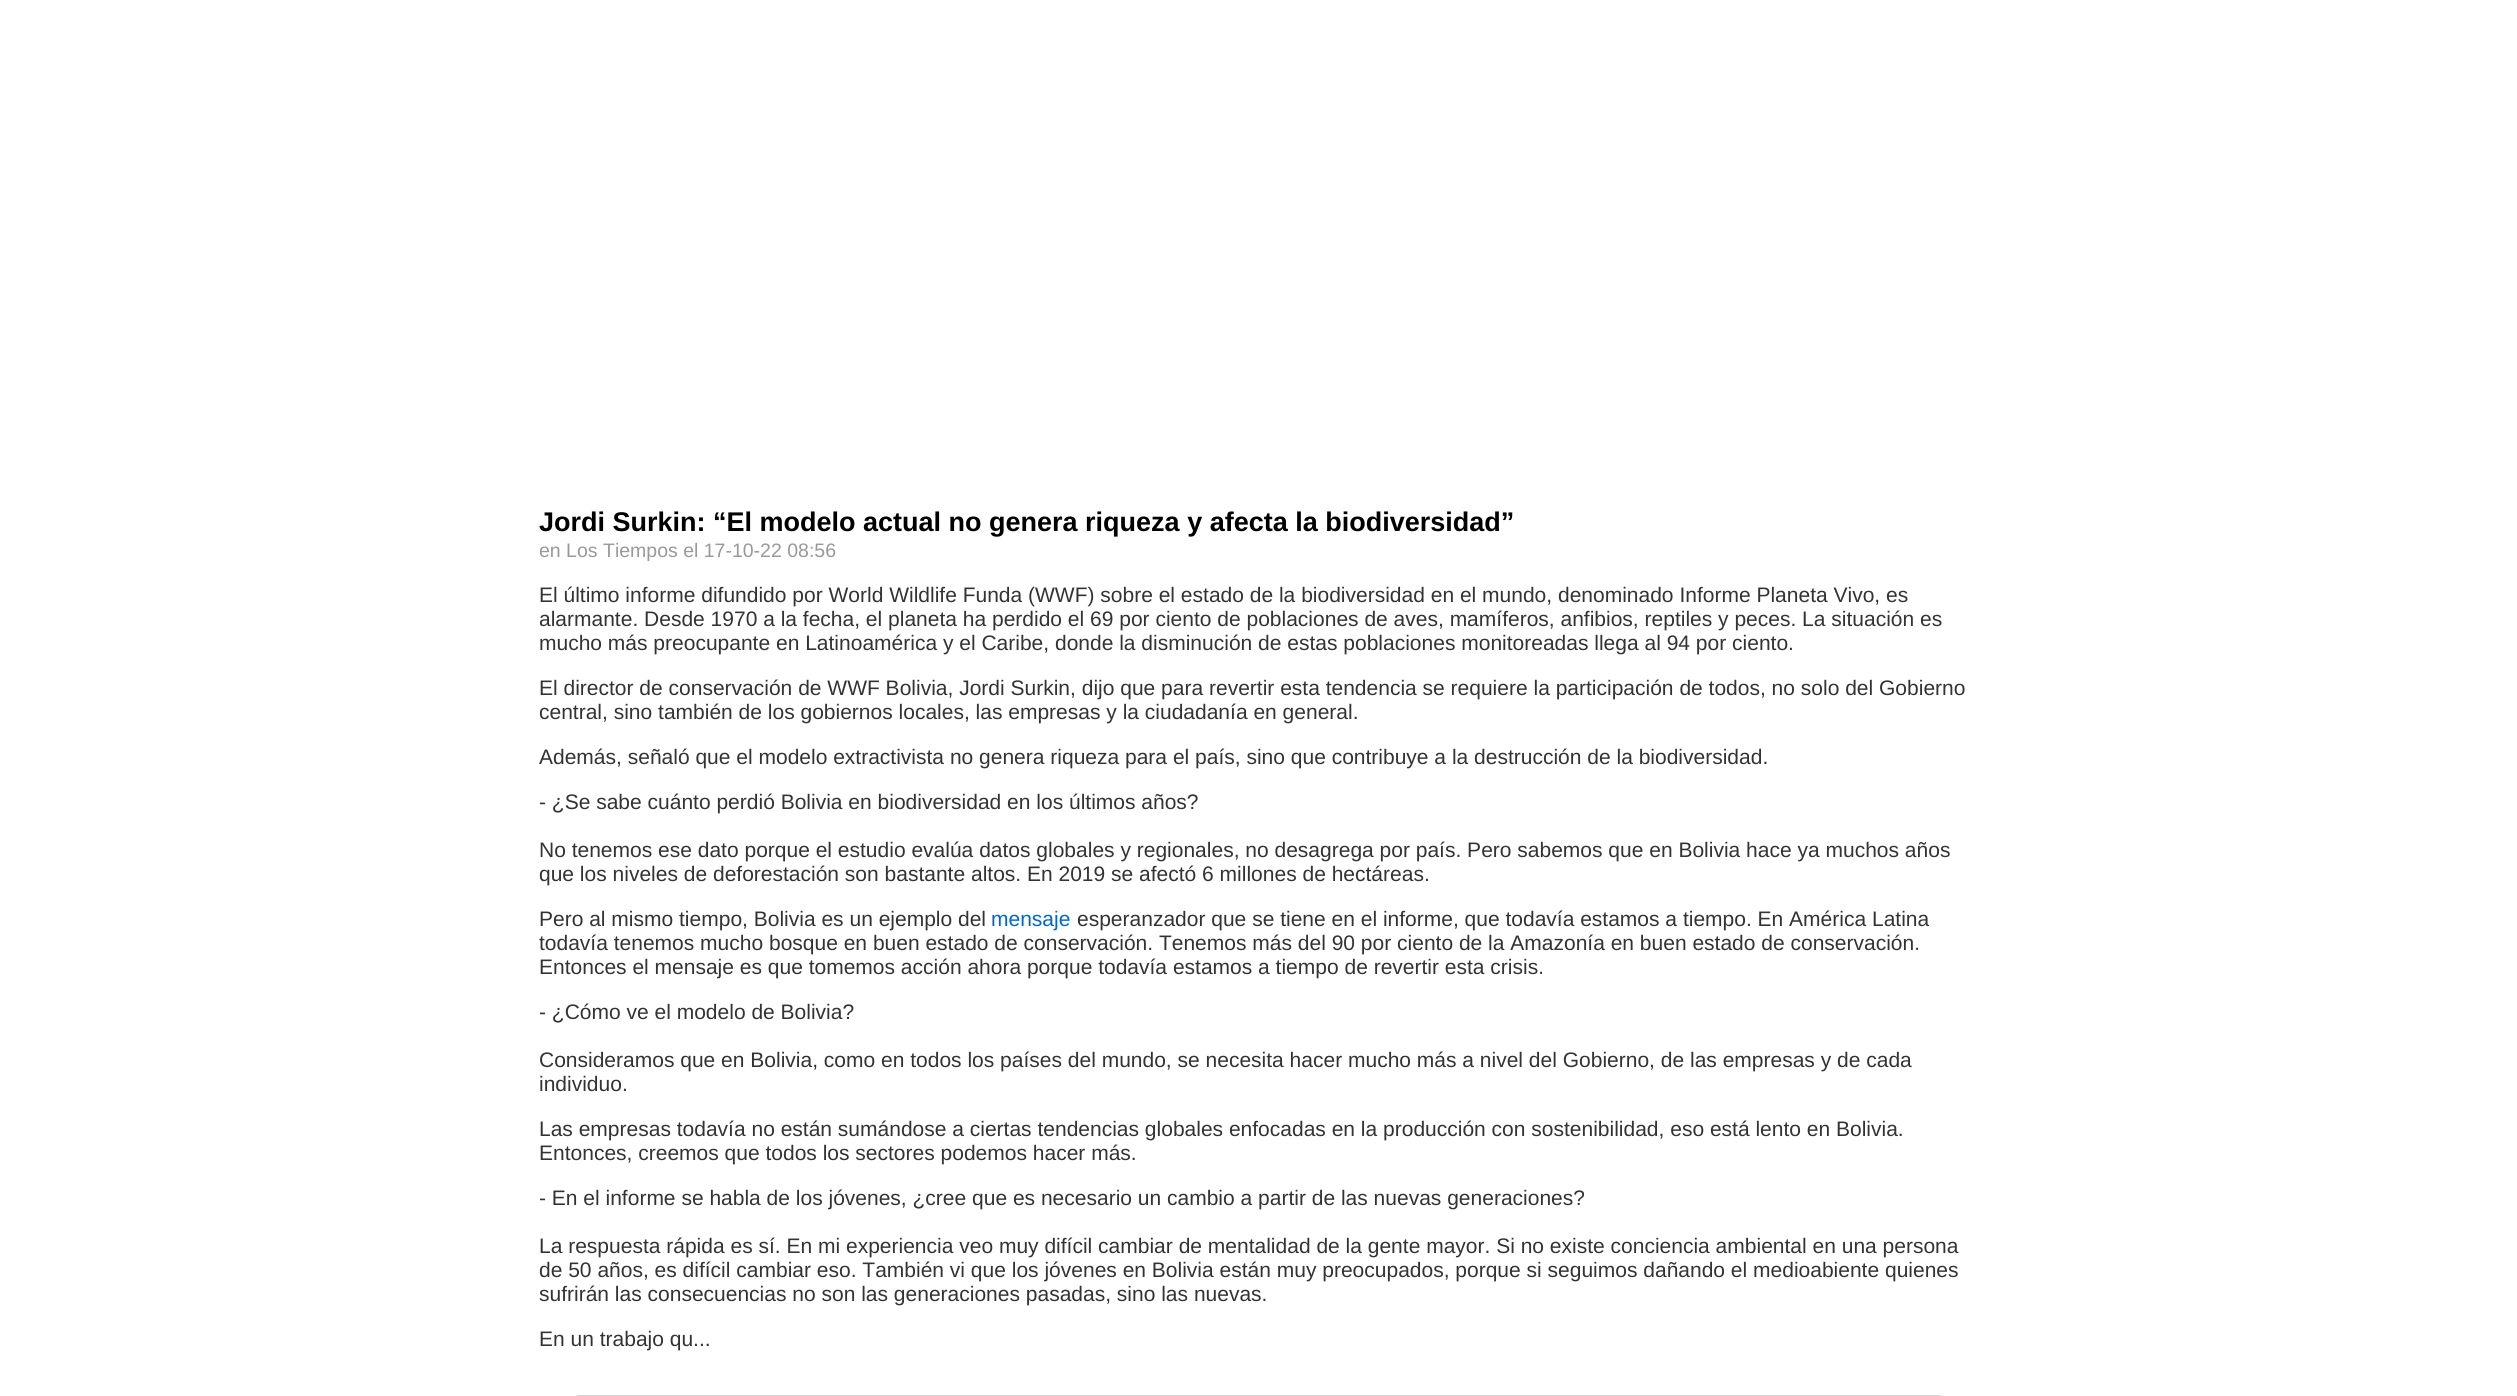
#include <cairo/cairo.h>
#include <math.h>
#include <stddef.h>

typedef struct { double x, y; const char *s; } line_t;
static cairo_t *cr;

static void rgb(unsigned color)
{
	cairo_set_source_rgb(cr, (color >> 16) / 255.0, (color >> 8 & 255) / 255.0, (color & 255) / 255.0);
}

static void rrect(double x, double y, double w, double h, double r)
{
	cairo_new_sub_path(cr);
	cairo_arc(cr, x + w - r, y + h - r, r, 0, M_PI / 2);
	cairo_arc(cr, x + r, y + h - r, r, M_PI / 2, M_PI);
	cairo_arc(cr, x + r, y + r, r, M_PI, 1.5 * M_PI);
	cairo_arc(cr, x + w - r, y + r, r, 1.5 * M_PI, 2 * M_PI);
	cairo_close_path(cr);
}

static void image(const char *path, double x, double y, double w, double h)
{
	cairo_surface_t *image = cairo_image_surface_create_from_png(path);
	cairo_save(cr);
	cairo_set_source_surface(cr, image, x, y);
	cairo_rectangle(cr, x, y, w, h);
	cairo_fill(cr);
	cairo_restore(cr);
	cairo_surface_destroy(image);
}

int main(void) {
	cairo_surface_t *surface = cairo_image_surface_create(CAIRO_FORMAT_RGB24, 2517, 1396);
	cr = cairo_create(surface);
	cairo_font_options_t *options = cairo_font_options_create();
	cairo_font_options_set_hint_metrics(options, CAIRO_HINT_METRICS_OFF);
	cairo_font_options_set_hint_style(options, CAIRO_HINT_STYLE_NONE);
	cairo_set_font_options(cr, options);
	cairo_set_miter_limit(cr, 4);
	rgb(0xffffff);
	cairo_paint(cr);
	image("img/1.png", 578, 1395, 1361, 1);
	rrect(574, 1396, 1369, 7, 5);
	rgb(0xd3d3d3);
	cairo_stroke(cr);
	cairo_select_font_face(cr, "Liberation Sans", CAIRO_FONT_SLANT_NORMAL, CAIRO_FONT_WEIGHT_BOLD);
	cairo_set_font_size(cr, 27);
	rgb(0x000000);
	cairo_move_to(cr, 539, 531);
	cairo_show_text(cr, "Jordi Surkin: “El modelo actual no genera riqueza y afecta la biodiversidad”");
	cairo_select_font_face(cr, "Liberation Sans", CAIRO_FONT_SLANT_NORMAL, CAIRO_FONT_WEIGHT_NORMAL);
	cairo_set_font_size(cr, 19.5);
	rgb(0x999999);
	cairo_move_to(cr, 539, 557);
	cairo_show_text(cr, "en Los Tiempos el 17-10-22 08:56");
	cairo_set_font_size(cr, 21);
	rgb(0x333333);
	{
		static const line_t items[] = {
			{539, 602, "El último informe difundido por World Wildlife Funda (WWF) sobre el estado de la biodiversidad en el mundo, denominado Informe Planeta Vivo, es"},
			{539, 626, "alarmante. Desde 1970 a la fecha, el planeta ha perdido el 69 por ciento de poblaciones de aves, mamíferos, anfibios, reptiles y peces. La situación es"},
			{539, 650, "mucho más preocupante en Latinoamérica y el Caribe, donde la disminución de estas poblaciones monitoreadas llega al 94 por ciento."},
			{539, 695, "El director de conservación de WWF Bolivia, Jordi Surkin, dijo que para revertir esta tendencia se requiere la participación de todos, no solo del Gobierno"},
			{539, 719, "central, sino también de los gobiernos locales, las empresas y la ciudadanía en general."},
			{539, 764, "Además, señaló que el modelo extractivista no genera riqueza para el país, sino que contribuye a la destrucción de la biodiversidad."},
			{539, 809, "- ¿Se sabe cuánto perdió Bolivia en biodiversidad en los últimos años?"},
			{539, 857, "No tenemos ese dato porque el estudio evalúa datos globales y regionales, no desagrega por país. Pero sabemos que en Bolivia hace ya muchos años"},
			{539, 881, "que los niveles de deforestación son bastante altos. En 2019 se afectó 6 millones de hectáreas."},
			{539, 926, "Pero al mismo tiempo, Bolivia es un ejemplo del"},
		};
		for (size_t i = 0; i < sizeof items / sizeof *items; i++) {
			cairo_move_to(cr, items[i].x, items[i].y);
			cairo_show_text(cr, items[i].s);
		}
	}
	rgb(0x0066cc);
	cairo_move_to(cr, 991, 926);
	cairo_show_text(cr, "mensaje");
	rgb(0x333333);
	{
		static const line_t items[] = {
			{1077, 926, "esperanzador que se tiene en el informe, que todavía estamos a tiempo. En América Latina"},
			{539, 950, "todavía tenemos mucho bosque en buen estado de conservación. Tenemos más del 90 por ciento de la Amazonía en buen estado de conservación."},
			{539, 974, "Entonces el mensaje es que tomemos acción ahora porque todavía estamos a tiempo de revertir esta crisis."},
			{539, 1019, "- ¿Cómo ve el modelo de Bolivia?"},
			{539, 1067, "Consideramos que en Bolivia, como en todos los países del mundo, se necesita hacer mucho más a nivel del Gobierno, de las empresas y de cada"},
			{539, 1091, "individuo."},
			{539, 1136, "Las empresas todavía no están sumándose a ciertas tendencias globales enfocadas en la producción con sostenibilidad, eso está lento en Bolivia."},
			{539, 1160, "Entonces, creemos que todos los sectores podemos hacer más."},
			{539, 1205, "- En el informe se habla de los jóvenes, ¿cree que es necesario un cambio a partir de las nuevas generaciones?"},
			{539, 1253, "La respuesta rápida es sí. En mi experiencia veo muy difícil cambiar de mentalidad de la gente mayor. Si no existe conciencia ambiental en una persona"},
			{539, 1277, "de 50 años, es difícil cambiar eso. También vi que los jóvenes en Bolivia están muy preocupados, porque si seguimos dañando el medioabiente quienes"},
			{539, 1301, "sufrirán las consecuencias no son las generaciones pasadas, sino las nuevas."},
			{539, 1346, "En un trabajo qu..."},
		};
		for (size_t i = 0; i < sizeof items / sizeof *items; i++) {
			cairo_move_to(cr, items[i].x, items[i].y);
			cairo_show_text(cr, items[i].s);
		}
	}
	cairo_surface_write_to_png(surface, "page.png");
	cairo_font_options_destroy(options);
	cairo_destroy(cr);
	cairo_surface_destroy(surface);
	return 0;
}
